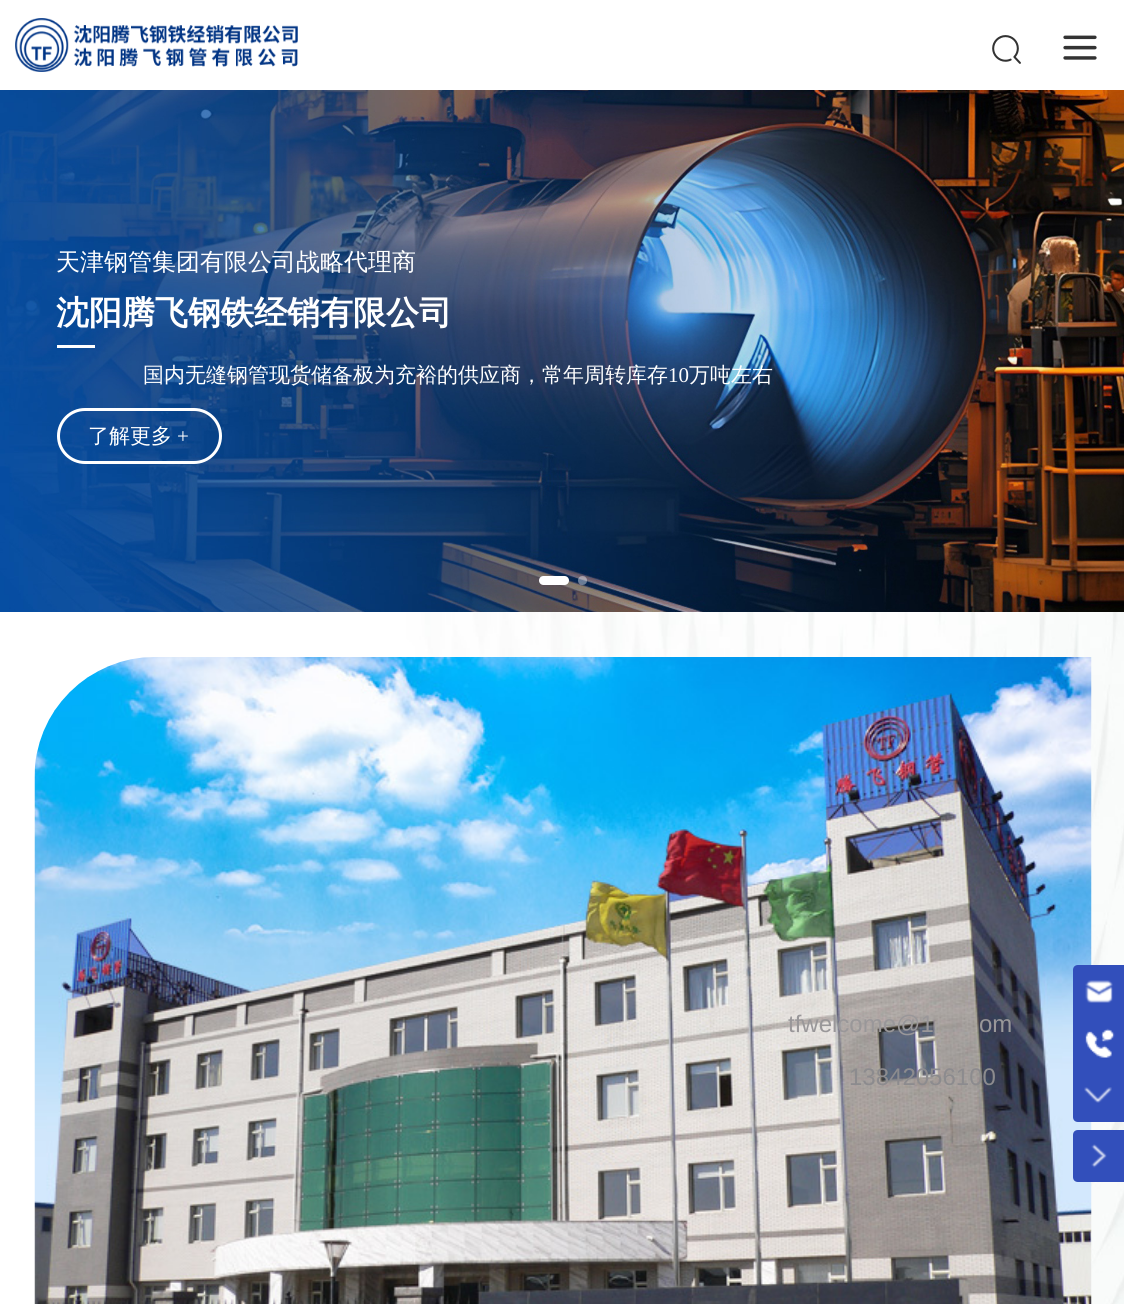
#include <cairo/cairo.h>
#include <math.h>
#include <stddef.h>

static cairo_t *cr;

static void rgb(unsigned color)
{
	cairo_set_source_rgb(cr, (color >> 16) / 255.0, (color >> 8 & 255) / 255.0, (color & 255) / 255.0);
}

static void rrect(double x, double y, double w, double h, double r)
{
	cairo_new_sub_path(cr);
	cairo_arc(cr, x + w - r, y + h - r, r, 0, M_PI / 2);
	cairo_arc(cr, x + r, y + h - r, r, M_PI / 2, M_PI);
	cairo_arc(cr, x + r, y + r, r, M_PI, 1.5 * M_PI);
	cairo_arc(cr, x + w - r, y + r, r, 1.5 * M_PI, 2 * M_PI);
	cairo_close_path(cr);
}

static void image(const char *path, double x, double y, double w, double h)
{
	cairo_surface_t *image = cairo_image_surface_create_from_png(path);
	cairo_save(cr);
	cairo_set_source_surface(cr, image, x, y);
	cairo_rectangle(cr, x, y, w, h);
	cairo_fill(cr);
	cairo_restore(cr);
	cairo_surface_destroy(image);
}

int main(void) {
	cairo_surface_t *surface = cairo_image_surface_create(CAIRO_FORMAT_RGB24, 1124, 1304);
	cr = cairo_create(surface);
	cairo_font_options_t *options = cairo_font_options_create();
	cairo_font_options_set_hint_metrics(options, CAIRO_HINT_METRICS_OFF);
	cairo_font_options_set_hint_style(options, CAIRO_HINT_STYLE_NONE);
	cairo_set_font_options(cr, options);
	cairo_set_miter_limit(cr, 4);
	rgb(0xffffff);
	cairo_paint(cr);
	image("img/1.png", 15, 18, 283, 54);
	image("img/2.png", 992, 35, 29, 29);
	image("img/3.png", 1063, 35, 34, 25);
	image("img/4.png", 0, 90, 1124, 522);
	rgb(0xffffff);
	cairo_rectangle(cr, 57, 345, 38, 3);
	cairo_fill(cr);
	rrect(58.5, 409.5, 162, 53, 26.5);
	cairo_set_line_width(cr, 3);
	cairo_stroke(cr);
	rrect(539, 576, 30, 9, 4.5);
	cairo_fill(cr);
	cairo_set_source_rgba(cr, 1, 1, 1, 0.4);
	cairo_arc(cr, 582.5, 580.5, 4.5, 0, 2 * M_PI);
	cairo_fill(cr);
	image("img/5.png", 293, 612, 831, 692);
	image("img/6.png", 34, 657, 1058, 647);
	rgb(0x324fbb);
	cairo_new_path(cr);
	cairo_move_to(cr, 1078, 965);
	cairo_line_to(cr, 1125, 965);
	cairo_line_to(cr, 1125, 1122);
	cairo_line_to(cr, 1078, 1122);
	cairo_curve_to(cr, 1075, 1122, 1073, 1120, 1073, 1117);
	cairo_line_to(cr, 1073, 970);
	cairo_curve_to(cr, 1073, 967, 1075, 965, 1078, 965);
	cairo_close_path(cr);
	cairo_fill(cr);
	image("img/7.png", 1085, 980, 28, 23);
	image("img/8.png", 1085, 1028, 30, 30);
	image("img/9.png", 1084, 1087, 28, 16);
	cairo_new_path(cr);
	cairo_move_to(cr, 1078, 1130);
	cairo_line_to(cr, 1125, 1130);
	cairo_line_to(cr, 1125, 1182);
	cairo_line_to(cr, 1078, 1182);
	cairo_curve_to(cr, 1075, 1182, 1073, 1180, 1073, 1177);
	cairo_line_to(cr, 1073, 1135);
	cairo_curve_to(cr, 1073, 1132, 1075, 1130, 1078, 1130);
	cairo_close_path(cr);
	cairo_fill(cr);
	image("img/10.png", 1091, 1144, 16, 24);
	cairo_select_font_face(cr, "WenQuanYi Zen Hei Medium", CAIRO_FONT_SLANT_NORMAL, CAIRO_FONT_WEIGHT_NORMAL);
	cairo_set_font_size(cr, 24);
	rgb(0xffffff);
	cairo_move_to(cr, 56, 270);
	cairo_show_text(cr, "天津钢管集团有限公司战略代理商");
	cairo_select_font_face(cr, "WenQuanYi Zen Hei", CAIRO_FONT_SLANT_NORMAL, CAIRO_FONT_WEIGHT_BOLD);
	cairo_set_font_size(cr, 33);
	cairo_move_to(cr, 56, 324);
	cairo_show_text(cr, "沈阳腾飞钢铁经销有限公司");
	cairo_select_font_face(cr, "WenQuanYi Zen Hei Medium", CAIRO_FONT_SLANT_NORMAL, CAIRO_FONT_WEIGHT_NORMAL);
	cairo_set_font_size(cr, 21);
	cairo_move_to(cr, 143, 382);
	cairo_show_text(cr, "国内无缝钢管现货储备极为充裕的供应商，常年周转库存");
	cairo_select_font_face(cr, "Liberation Serif", CAIRO_FONT_SLANT_NORMAL, CAIRO_FONT_WEIGHT_NORMAL);
	cairo_move_to(cr, 668, 382);
	cairo_show_text(cr, "10");
	cairo_select_font_face(cr, "WenQuanYi Zen Hei Medium", CAIRO_FONT_SLANT_NORMAL, CAIRO_FONT_WEIGHT_NORMAL);
	cairo_move_to(cr, 689, 382);
	cairo_show_text(cr, "万吨左右");
	cairo_move_to(cr, 88, 443);
	cairo_show_text(cr, "了解更多");
	cairo_select_font_face(cr, "Liberation Serif", CAIRO_FONT_SLANT_NORMAL, CAIRO_FONT_WEIGHT_NORMAL);
	cairo_move_to(cr, 177, 443);
	cairo_show_text(cr, "+");
	cairo_select_font_face(cr, "Liberation Sans", CAIRO_FONT_SLANT_NORMAL, CAIRO_FONT_WEIGHT_NORMAL);
	cairo_set_font_size(cr, 24);
	rgb(0x999799);
	cairo_move_to(cr, 788, 1032);
	cairo_show_text(cr, "tfwelcome@1");
	cairo_move_to(cr, 979, 1032);
	cairo_show_text(cr, "om");
	rgb(0x8c8b8e);
	cairo_move_to(cr, 849, 1085);
	cairo_show_text(cr, "13842056100");
	cairo_surface_write_to_png(surface, "page.png");
	cairo_font_options_destroy(options);
	cairo_destroy(cr);
	cairo_surface_destroy(surface);
	return 0;
}
